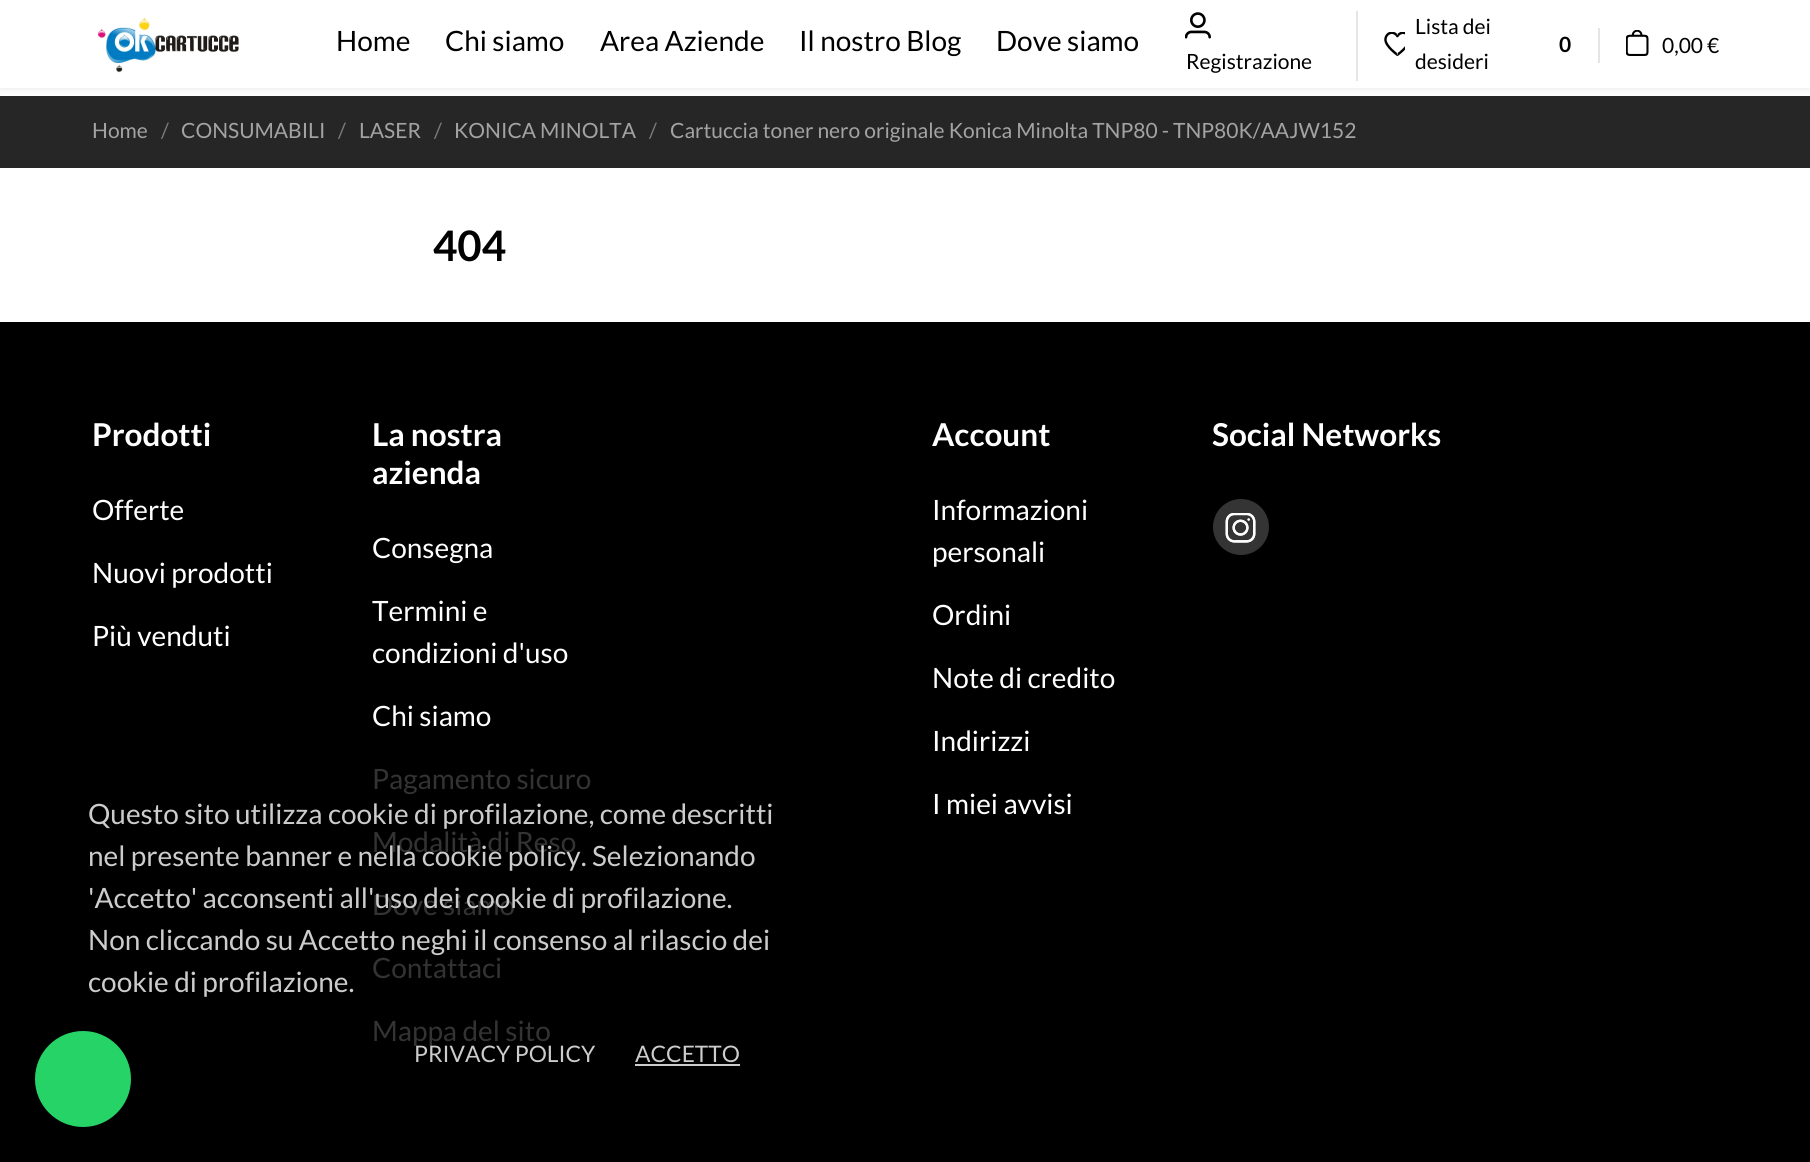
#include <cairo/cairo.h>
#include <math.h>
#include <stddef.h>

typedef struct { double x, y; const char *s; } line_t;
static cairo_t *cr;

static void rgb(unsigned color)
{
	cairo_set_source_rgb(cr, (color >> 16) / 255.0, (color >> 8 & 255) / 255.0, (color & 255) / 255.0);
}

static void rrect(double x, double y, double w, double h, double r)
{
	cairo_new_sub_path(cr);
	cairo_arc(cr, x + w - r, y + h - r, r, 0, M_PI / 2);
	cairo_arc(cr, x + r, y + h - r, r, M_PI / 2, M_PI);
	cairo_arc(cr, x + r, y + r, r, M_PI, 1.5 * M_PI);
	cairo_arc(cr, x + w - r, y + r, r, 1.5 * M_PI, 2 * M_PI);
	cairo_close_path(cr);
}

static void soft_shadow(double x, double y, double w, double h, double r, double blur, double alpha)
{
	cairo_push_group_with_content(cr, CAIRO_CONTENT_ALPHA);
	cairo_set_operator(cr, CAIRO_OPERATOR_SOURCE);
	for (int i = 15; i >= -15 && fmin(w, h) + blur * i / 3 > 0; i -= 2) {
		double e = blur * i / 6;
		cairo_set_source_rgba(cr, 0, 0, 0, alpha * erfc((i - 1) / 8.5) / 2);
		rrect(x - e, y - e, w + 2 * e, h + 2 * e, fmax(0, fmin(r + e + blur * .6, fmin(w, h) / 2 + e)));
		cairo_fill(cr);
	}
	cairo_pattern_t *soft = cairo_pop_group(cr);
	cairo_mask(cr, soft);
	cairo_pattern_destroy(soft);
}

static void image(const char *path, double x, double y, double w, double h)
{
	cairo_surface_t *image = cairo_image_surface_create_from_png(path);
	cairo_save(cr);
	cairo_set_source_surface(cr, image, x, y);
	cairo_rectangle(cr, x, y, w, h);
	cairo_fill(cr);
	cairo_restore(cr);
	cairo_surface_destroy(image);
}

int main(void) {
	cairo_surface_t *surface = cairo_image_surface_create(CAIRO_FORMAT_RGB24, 1810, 1162);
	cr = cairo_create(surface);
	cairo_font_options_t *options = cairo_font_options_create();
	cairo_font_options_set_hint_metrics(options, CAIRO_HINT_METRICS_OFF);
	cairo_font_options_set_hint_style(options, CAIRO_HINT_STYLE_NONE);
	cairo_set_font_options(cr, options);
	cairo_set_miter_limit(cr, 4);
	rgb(0xffffff);
	cairo_paint(cr);
	rgb(0x262626);
	cairo_rectangle(cr, 0, 96, 1810, 72);
	cairo_fill(cr);
	rgb(0x010101);
	soft_shadow(0, 0, 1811, 88, 0, 5, 0.1);
	rgb(0xffffff);
	cairo_rectangle(cr, 0, 0, 1810, 88);
	cairo_fill(cr);
	image("img/1.png", 97, 17, 142, 56);
	rgb(0xe5e5e5);
	cairo_rectangle(cr, 1356, 11, 2, 70);
	cairo_fill(cr);
	image("img/2.png", 1384, 32, 21, 24);
	cairo_rectangle(cr, 1598, 28, 2, 35);
	cairo_fill(cr);
	image("img/3.png", 1626, 30, 23, 26);
	image("img/4.png", 1185, 12, 26, 27);
	rgb(0x000000);
	cairo_rectangle(cr, 0, 322, 1810, 840);
	cairo_fill(cr);
	rgb(0x343434);
	cairo_arc(cr, 1241, 527, 28, 0, 2 * M_PI);
	cairo_fill(cr);
	image("img/5.png", 1225, 513, 31, 30);
	rgb(0x25d366);
	cairo_arc(cr, 83, 1079, 48, 0, 2 * M_PI);
	cairo_fill(cr);
	rgb(0xcccccc);
	cairo_rectangle(cr, 635, 1064, 105, 2);
	cairo_fill(cr);
	cairo_select_font_face(cr, "Lato", CAIRO_FONT_SLANT_NORMAL, CAIRO_FONT_WEIGHT_NORMAL);
	cairo_set_font_size(cr, 28);
	rgb(0x000000);
	{
		static const line_t items[] = {
			{336, 51, "Home"},
			{445, 51, "Chi siamo"},
			{600, 51, "Area Aziende"},
			{799, 51, "Il nostro Blog"},
			{996, 51, "Dove siamo"},
		};
		for (size_t i = 0; i < sizeof items / sizeof *items; i++) {
			cairo_move_to(cr, items[i].x, items[i].y);
			cairo_show_text(cr, items[i].s);
		}
	}
	cairo_set_font_size(cr, 21);
	cairo_move_to(cr, 1415, 34);
	cairo_show_text(cr, "Lista dei");
	cairo_move_to(cr, 1415, 69);
	cairo_show_text(cr, "desideri");
	cairo_select_font_face(cr, "Lato", CAIRO_FONT_SLANT_NORMAL, CAIRO_FONT_WEIGHT_BOLD);
	cairo_move_to(cr, 1559, 52);
	cairo_show_text(cr, "0");
	cairo_select_font_face(cr, "Lato", CAIRO_FONT_SLANT_NORMAL, CAIRO_FONT_WEIGHT_NORMAL);
	cairo_move_to(cr, 1662, 53);
	cairo_show_text(cr, "0,00 €");
	cairo_move_to(cr, 1186, 69);
	cairo_show_text(cr, "Registrazione");
	rgb(0xa3a3a3);
	cairo_move_to(cr, 92, 138);
	cairo_show_text(cr, "Home");
	rgb(0x7a7a7a);
	cairo_move_to(cr, 161, 138);
	cairo_show_text(cr, "/");
	rgb(0xa3a3a3);
	cairo_move_to(cr, 181, 138);
	cairo_show_text(cr, "CONSUMABILI");
	rgb(0x7a7a7a);
	cairo_move_to(cr, 338, 138);
	cairo_show_text(cr, "/");
	rgb(0xa3a3a3);
	cairo_move_to(cr, 359, 138);
	cairo_show_text(cr, "LASER");
	rgb(0x7a7a7a);
	cairo_move_to(cr, 434, 138);
	cairo_show_text(cr, "/");
	rgb(0xa3a3a3);
	cairo_move_to(cr, 454, 138);
	cairo_show_text(cr, "KONICA MINOLTA");
	rgb(0x7a7a7a);
	cairo_move_to(cr, 649, 138);
	cairo_show_text(cr, "/");
	rgb(0xa3a3a3);
	cairo_move_to(cr, 670, 138);
	cairo_show_text(cr, "Cartuccia toner nero originale Konica Minolta TNP80 - TNP80K/AAJW152");
	cairo_select_font_face(cr, "Lato", CAIRO_FONT_SLANT_NORMAL, CAIRO_FONT_WEIGHT_BOLD);
	cairo_set_font_size(cr, 42);
	rgb(0x000000);
	cairo_move_to(cr, 433, 261);
	cairo_show_text(cr, "404");
	cairo_set_font_size(cr, 31.5);
	rgb(0xffffff);
	cairo_move_to(cr, 92, 446);
	cairo_show_text(cr, "Prodotti");
	cairo_select_font_face(cr, "Lato", CAIRO_FONT_SLANT_NORMAL, CAIRO_FONT_WEIGHT_NORMAL);
	cairo_set_font_size(cr, 28);
	{
		static const line_t items[] = {
			{92, 520, "Offerte"},
			{92, 583, "Nuovi prodotti"},
			{92, 646, "Più venduti"},
		};
		for (size_t i = 0; i < sizeof items / sizeof *items; i++) {
			cairo_move_to(cr, items[i].x, items[i].y);
			cairo_show_text(cr, items[i].s);
		}
	}
	cairo_select_font_face(cr, "Lato", CAIRO_FONT_SLANT_NORMAL, CAIRO_FONT_WEIGHT_BOLD);
	cairo_set_font_size(cr, 31.5);
	cairo_move_to(cr, 372, 446);
	cairo_show_text(cr, "La nostra");
	cairo_move_to(cr, 372, 484);
	cairo_show_text(cr, "azienda");
	cairo_select_font_face(cr, "Lato", CAIRO_FONT_SLANT_NORMAL, CAIRO_FONT_WEIGHT_NORMAL);
	cairo_set_font_size(cr, 28);
	{
		static const line_t items[] = {
			{372, 558, "Consegna"},
			{372, 621, "Termini e"},
			{372, 663, "condizioni d'uso"},
			{372, 726, "Chi siamo"},
		};
		for (size_t i = 0; i < sizeof items / sizeof *items; i++) {
			cairo_move_to(cr, items[i].x, items[i].y);
			cairo_show_text(cr, items[i].s);
		}
	}
	rgb(0x333333);
	{
		static const line_t items[] = {
			{372, 789, "Pagamento sicuro"},
			{372, 852, "Modalità di Reso"},
			{372, 915, "Dove siamo"},
			{372, 978, "Contattaci"},
			{372, 1041, "Mappa del sito"},
		};
		for (size_t i = 0; i < sizeof items / sizeof *items; i++) {
			cairo_move_to(cr, items[i].x, items[i].y);
			cairo_show_text(cr, items[i].s);
		}
	}
	cairo_select_font_face(cr, "Lato", CAIRO_FONT_SLANT_NORMAL, CAIRO_FONT_WEIGHT_BOLD);
	cairo_set_font_size(cr, 31.5);
	rgb(0xffffff);
	cairo_move_to(cr, 932, 446);
	cairo_show_text(cr, "Account");
	cairo_select_font_face(cr, "Lato", CAIRO_FONT_SLANT_NORMAL, CAIRO_FONT_WEIGHT_NORMAL);
	cairo_set_font_size(cr, 28);
	{
		static const line_t items[] = {
			{932, 520, "Informazioni"},
			{932, 562, "personali"},
			{932, 625, "Ordini"},
			{932, 688, "Note di credito"},
			{932, 751, "Indirizzi"},
			{932, 814, "I miei avvisi"},
		};
		for (size_t i = 0; i < sizeof items / sizeof *items; i++) {
			cairo_move_to(cr, items[i].x, items[i].y);
			cairo_show_text(cr, items[i].s);
		}
	}
	cairo_select_font_face(cr, "Lato", CAIRO_FONT_SLANT_NORMAL, CAIRO_FONT_WEIGHT_BOLD);
	cairo_set_font_size(cr, 31.5);
	cairo_move_to(cr, 1212, 446);
	cairo_show_text(cr, "Social Networks");
	cairo_select_font_face(cr, "Lato", CAIRO_FONT_SLANT_NORMAL, CAIRO_FONT_WEIGHT_NORMAL);
	cairo_set_font_size(cr, 28);
	rgb(0xcccccc);
	{
		static const line_t items[] = {
			{88, 824, "Questo sito utilizza cookie di profilazione, come descritti"},
			{88, 866, "nel presente banner e nella cookie policy. Selezionando"},
			{88, 908, "'Accetto' acconsenti all'uso dei cookie di profilazione."},
			{88, 950, "Non cliccando su Accetto neghi il consenso al rilascio dei"},
			{88, 992, "cookie di profilazione."},
		};
		for (size_t i = 0; i < sizeof items / sizeof *items; i++) {
			cairo_move_to(cr, items[i].x, items[i].y);
			cairo_show_text(cr, items[i].s);
		}
	}
	cairo_set_font_size(cr, 22.75);
	cairo_move_to(cr, 414, 1062);
	cairo_show_text(cr, "PRIVACY POLICY");
	cairo_move_to(cr, 635, 1062);
	cairo_show_text(cr, "ACCETTO");
	cairo_surface_write_to_png(surface, "page.png");
	cairo_font_options_destroy(options);
	cairo_destroy(cr);
	cairo_surface_destroy(surface);
	return 0;
}
